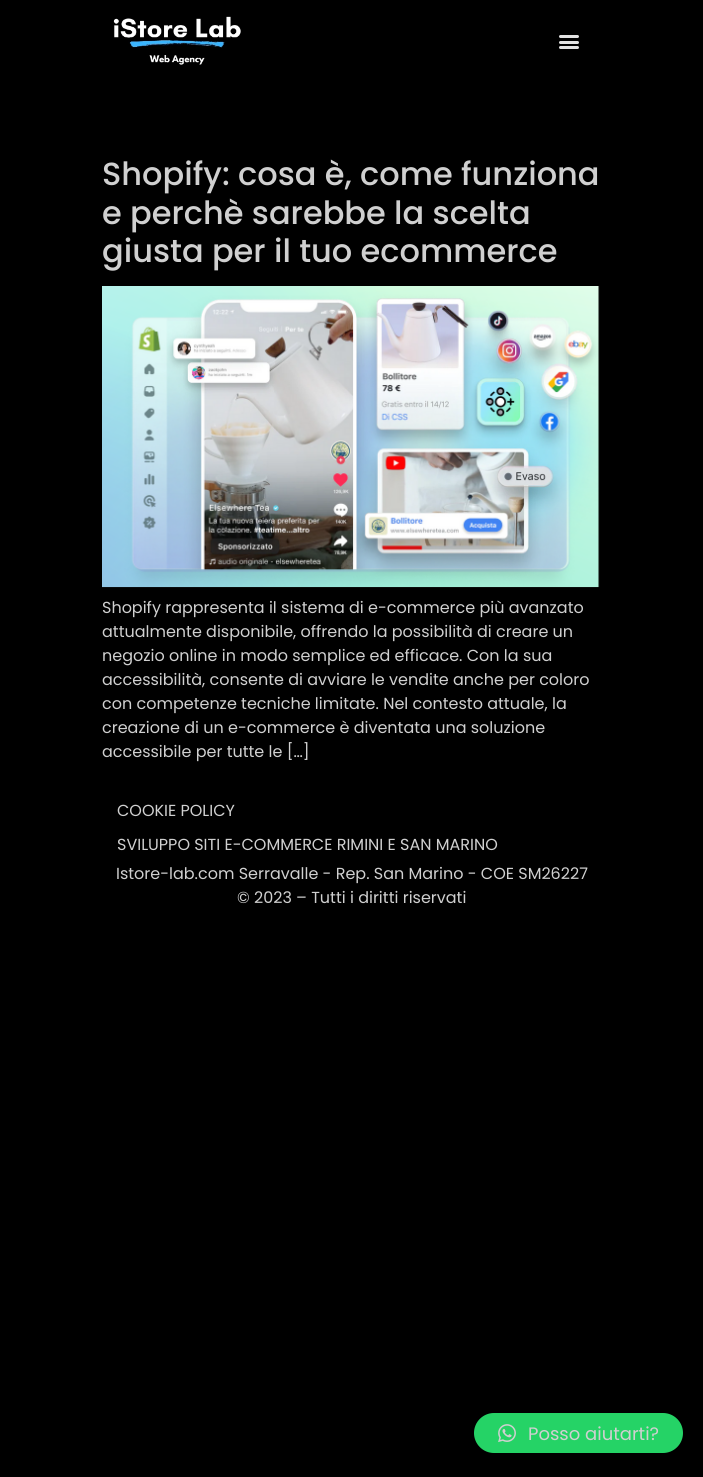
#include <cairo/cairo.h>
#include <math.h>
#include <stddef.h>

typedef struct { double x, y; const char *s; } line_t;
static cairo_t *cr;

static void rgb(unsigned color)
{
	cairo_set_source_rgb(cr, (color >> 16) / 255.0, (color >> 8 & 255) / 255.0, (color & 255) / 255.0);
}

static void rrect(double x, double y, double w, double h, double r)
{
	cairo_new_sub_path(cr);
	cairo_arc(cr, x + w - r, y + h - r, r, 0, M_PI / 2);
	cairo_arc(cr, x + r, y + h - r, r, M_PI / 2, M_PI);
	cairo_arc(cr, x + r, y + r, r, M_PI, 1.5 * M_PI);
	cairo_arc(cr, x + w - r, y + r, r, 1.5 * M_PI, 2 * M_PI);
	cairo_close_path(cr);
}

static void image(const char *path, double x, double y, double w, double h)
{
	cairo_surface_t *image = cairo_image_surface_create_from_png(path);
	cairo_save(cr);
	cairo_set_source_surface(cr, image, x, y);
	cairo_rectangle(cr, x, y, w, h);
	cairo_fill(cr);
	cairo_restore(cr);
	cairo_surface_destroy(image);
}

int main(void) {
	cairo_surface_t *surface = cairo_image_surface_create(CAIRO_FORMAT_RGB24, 703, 1477);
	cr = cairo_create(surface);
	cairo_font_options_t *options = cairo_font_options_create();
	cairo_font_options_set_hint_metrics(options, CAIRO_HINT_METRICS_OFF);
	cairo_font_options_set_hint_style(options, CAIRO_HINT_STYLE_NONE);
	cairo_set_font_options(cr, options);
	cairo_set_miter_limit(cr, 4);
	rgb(0x000000);
	cairo_paint(cr);
	image("img/1.png", 113, 16, 128, 49);
	rgb(0xe3e3e3);
	rrect(559, 41, 20, 3, 1.5);
	cairo_fill(cr);
	rrect(559, 35, 20, 3, 1.5);
	cairo_fill(cr);
	rrect(559, 46, 20, 3, 1.5);
	cairo_fill(cr);
	image("img/2.png", 102, 286, 498, 302);
	rgb(0x25d366);
	rrect(474, 1413, 209, 40, 20);
	cairo_fill(cr);
	image("img/3.png", 498, 1424, 18, 19);
	cairo_select_font_face(cr, "Poppins Medium", CAIRO_FONT_SLANT_NORMAL, CAIRO_FONT_WEIGHT_NORMAL);
	cairo_set_font_size(cr, 32);
	rgb(0xd0d0d0);
	{
		static const line_t items[] = {
			{102, 185, "Shopify: cosa è, come funziona"},
			{102, 224, "e perchè sarebbe la scelta"},
			{102, 262, "giusta per il tuo ecommerce"},
		};
		for (size_t i = 0; i < sizeof items / sizeof *items; i++) {
			cairo_move_to(cr, items[i].x, items[i].y);
			cairo_show_text(cr, items[i].s);
		}
	}
	cairo_select_font_face(cr, "Poppins", CAIRO_FONT_SLANT_NORMAL, CAIRO_FONT_WEIGHT_NORMAL);
	cairo_set_font_size(cr, 16);
	{
		static const line_t items[] = {
			{102, 613, "Shopify rappresenta il sistema di e-commerce più avanzato"},
			{102, 637, "attualmente disponibile, offrendo la possibilità di creare un"},
			{102, 661, "negozio online in modo semplice ed efficace. Con la sua"},
			{102, 685, "accessibilità, consente di avviare le vendite anche per coloro"},
			{102, 709, "con competenze tecniche limitate. Nel contesto attuale, la"},
			{102, 733, "creazione di un e-commerce è diventata una soluzione"},
			{102, 757, "accessibile per tutte le […]"},
			{117, 816, "COOKIE POLICY"},
			{117, 850, "SVILUPPO SITI E-COMMERCE RIMINI E SAN MARINO"},
			{116, 879, "Istore-lab.com Serravalle - Rep. San Marino - COE SM26227"},
			{237, 903, "© 2023 – Tutti i diritti riservati"},
		};
		for (size_t i = 0; i < sizeof items / sizeof *items; i++) {
			cairo_move_to(cr, items[i].x, items[i].y);
			cairo_show_text(cr, items[i].s);
		}
	}
	cairo_set_font_size(cr, 18);
	cairo_move_to(cr, 528, 1440);
	cairo_show_text(cr, "Posso aiutarti?");
	cairo_surface_write_to_png(surface, "page.png");
	cairo_font_options_destroy(options);
	cairo_destroy(cr);
	cairo_surface_destroy(surface);
	return 0;
}
